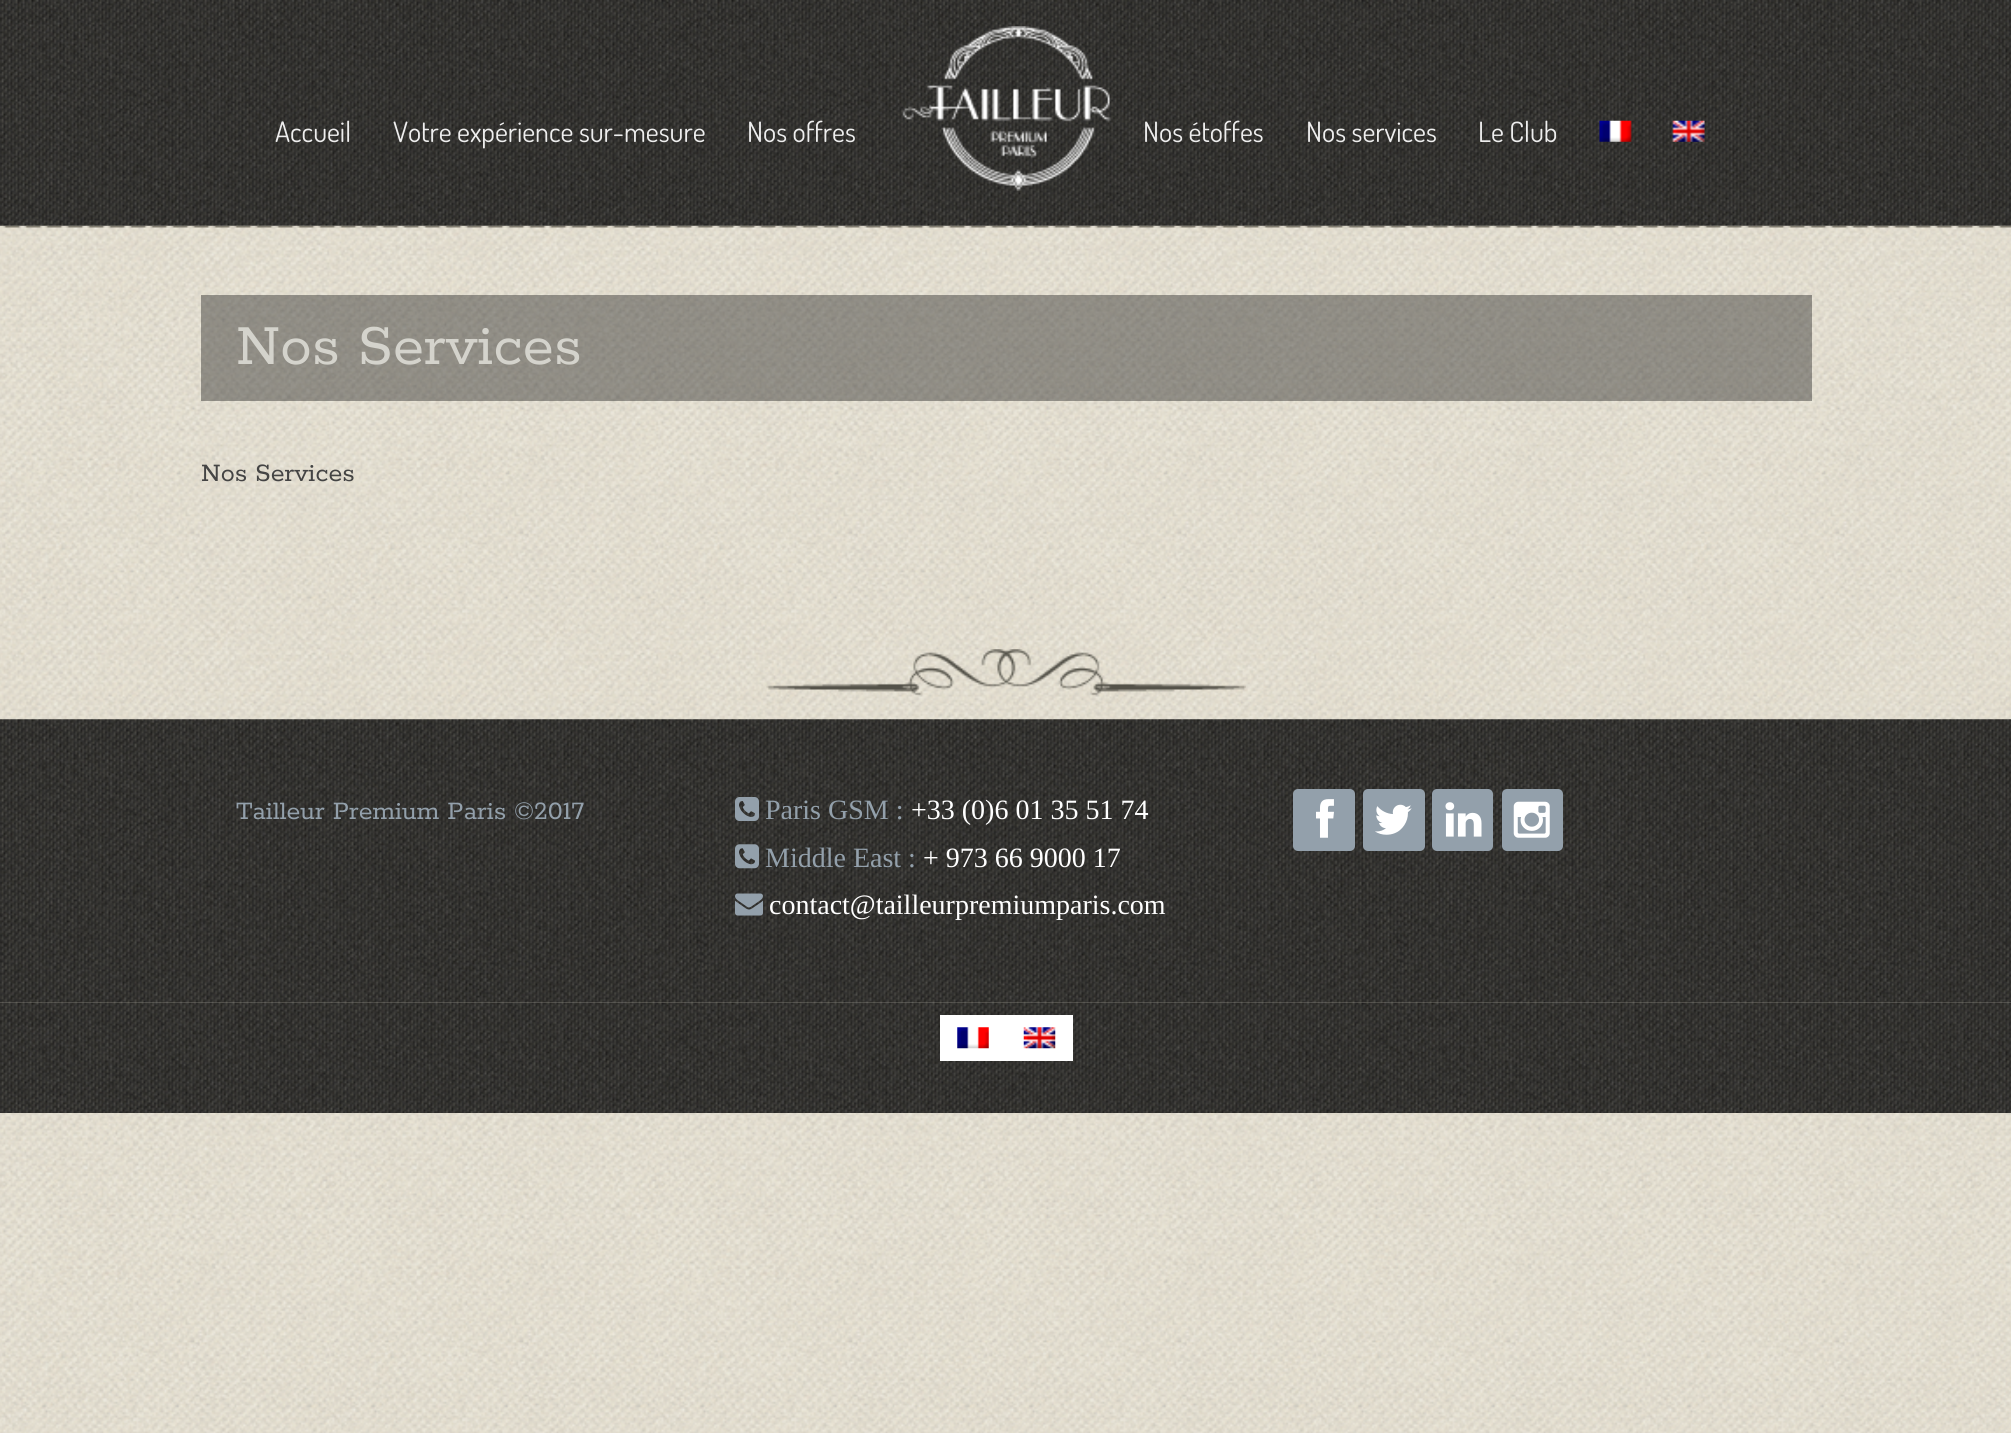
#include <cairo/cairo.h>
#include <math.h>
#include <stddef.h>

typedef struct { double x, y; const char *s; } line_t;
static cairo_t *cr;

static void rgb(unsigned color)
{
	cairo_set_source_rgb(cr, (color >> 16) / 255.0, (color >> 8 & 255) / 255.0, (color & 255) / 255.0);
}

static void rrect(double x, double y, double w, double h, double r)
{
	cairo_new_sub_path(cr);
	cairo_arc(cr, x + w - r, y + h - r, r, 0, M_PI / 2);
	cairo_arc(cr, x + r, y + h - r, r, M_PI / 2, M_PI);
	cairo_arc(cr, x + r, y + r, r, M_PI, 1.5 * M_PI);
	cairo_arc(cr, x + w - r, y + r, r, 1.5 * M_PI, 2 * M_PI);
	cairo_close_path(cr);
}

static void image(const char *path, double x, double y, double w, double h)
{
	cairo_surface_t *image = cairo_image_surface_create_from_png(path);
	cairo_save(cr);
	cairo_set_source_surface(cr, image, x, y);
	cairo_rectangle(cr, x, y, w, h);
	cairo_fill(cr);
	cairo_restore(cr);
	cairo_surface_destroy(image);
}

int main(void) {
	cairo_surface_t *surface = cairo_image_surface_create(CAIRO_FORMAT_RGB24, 2011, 1433);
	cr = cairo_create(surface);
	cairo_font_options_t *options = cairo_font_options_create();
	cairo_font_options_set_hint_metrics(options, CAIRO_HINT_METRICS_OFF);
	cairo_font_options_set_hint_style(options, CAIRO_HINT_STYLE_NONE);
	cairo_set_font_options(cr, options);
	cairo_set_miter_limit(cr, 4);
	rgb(0xffffff);
	cairo_paint(cr);
	image("img/1.png", 0, 225, 2011, 1208);
	image("img/6.png", 0, 225, 2011, 3);
	image("img/2.png", 0, 0, 2011, 226);
	image("img/3.png", 902, 26, 210, 165);
	image("img/4.png", 1599, 120, 33, 22);
	image("img/5.png", 1672, 120, 33, 22);
	image("img/7.png", 766, 649, 480, 47);
	cairo_set_source_rgba(cr, 0.09, 0.09, 0.09, 0.4);
	cairo_rectangle(cr, 201, 295, 1611, 106);
	cairo_fill(cr);
	image("img/8.png", 0, 719, 2011, 284);
	image("img/9.png", 735, 797, 24, 24);
	image("img/10.png", 735, 844, 24, 25);
	image("img/11.png", 735, 893, 28, 23);
	rgb(0x93a0ab);
	rrect(1293, 789, 62, 62, 5);
	cairo_fill(cr);
	image("img/12.png", 1316, 799, 18, 39);
	rrect(1363, 789, 62, 62, 5);
	cairo_fill(cr);
	image("img/13.png", 1375, 804, 37, 31);
	rrect(1432, 789, 61, 62, 5);
	cairo_fill(cr);
	image("img/14.png", 1445, 802, 37, 35);
	rrect(1502, 789, 61, 62, 5);
	cairo_fill(cr);
	image("img/15.png", 1513, 801, 37, 37);
	image("img/16.png", 0, 1002, 2011, 111);
	rgb(0xffffff);
	cairo_rectangle(cr, 940, 1015, 133, 46);
	cairo_fill(cr);
	image("img/17.png", 957, 1027, 32, 22);
	image("img/18.png", 1023, 1027, 33, 22);
	cairo_select_font_face(cr, "Dosis", CAIRO_FONT_SLANT_NORMAL, CAIRO_FONT_WEIGHT_NORMAL);
	cairo_set_font_size(cr, 28);
	rgb(0xeeeeee);
	{
		static const line_t items[] = {
			{275, 142, "Accueil"},
			{393, 142, "Votre expérience sur-mesure"},
			{747, 142, "Nos offres"},
			{1143, 142, "Nos étoffes"},
			{1306, 142, "Nos services"},
			{1478, 142, "Le Club"},
		};
		for (size_t i = 0; i < sizeof items / sizeof *items; i++) {
			cairo_move_to(cr, items[i].x, items[i].y);
			cairo_show_text(cr, items[i].s);
		}
	}
	cairo_select_font_face(cr, "Rokkitt SemiBold", CAIRO_FONT_SLANT_NORMAL, CAIRO_FONT_WEIGHT_NORMAL);
	cairo_set_font_size(cr, 63);
	rgb(0xd4d3cc);
	cairo_move_to(cr, 236, 364);
	cairo_show_text(cr, "Nos Services");
	cairo_set_font_size(cr, 28);
	rgb(0x444444);
	cairo_move_to(cr, 201, 481);
	cairo_show_text(cr, "Nos Services");
	rgb(0x93a0ab);
	cairo_move_to(cr, 236, 819);
	cairo_show_text(cr, "Tailleur Premium Paris ©2017");
	cairo_select_font_face(cr, "Liberation Serif", CAIRO_FONT_SLANT_NORMAL, CAIRO_FONT_WEIGHT_NORMAL);
	cairo_move_to(cr, 765, 819);
	cairo_show_text(cr, "Paris GSM :");
	rgb(0xffffff);
	cairo_move_to(cr, 911, 819);
	cairo_show_text(cr, "+33 (0)6 01 35 51 74");
	rgb(0x93a0ab);
	cairo_move_to(cr, 765, 867);
	cairo_show_text(cr, "Middle East :");
	rgb(0xffffff);
	cairo_move_to(cr, 923, 867);
	cairo_show_text(cr, "+ 973 66 9000 17");
	cairo_move_to(cr, 769, 914);
	cairo_show_text(cr, "contact@tailleurpremiumparis.com");
	cairo_surface_write_to_png(surface, "page.png");
	cairo_font_options_destroy(options);
	cairo_destroy(cr);
	cairo_surface_destroy(surface);
	return 0;
}
